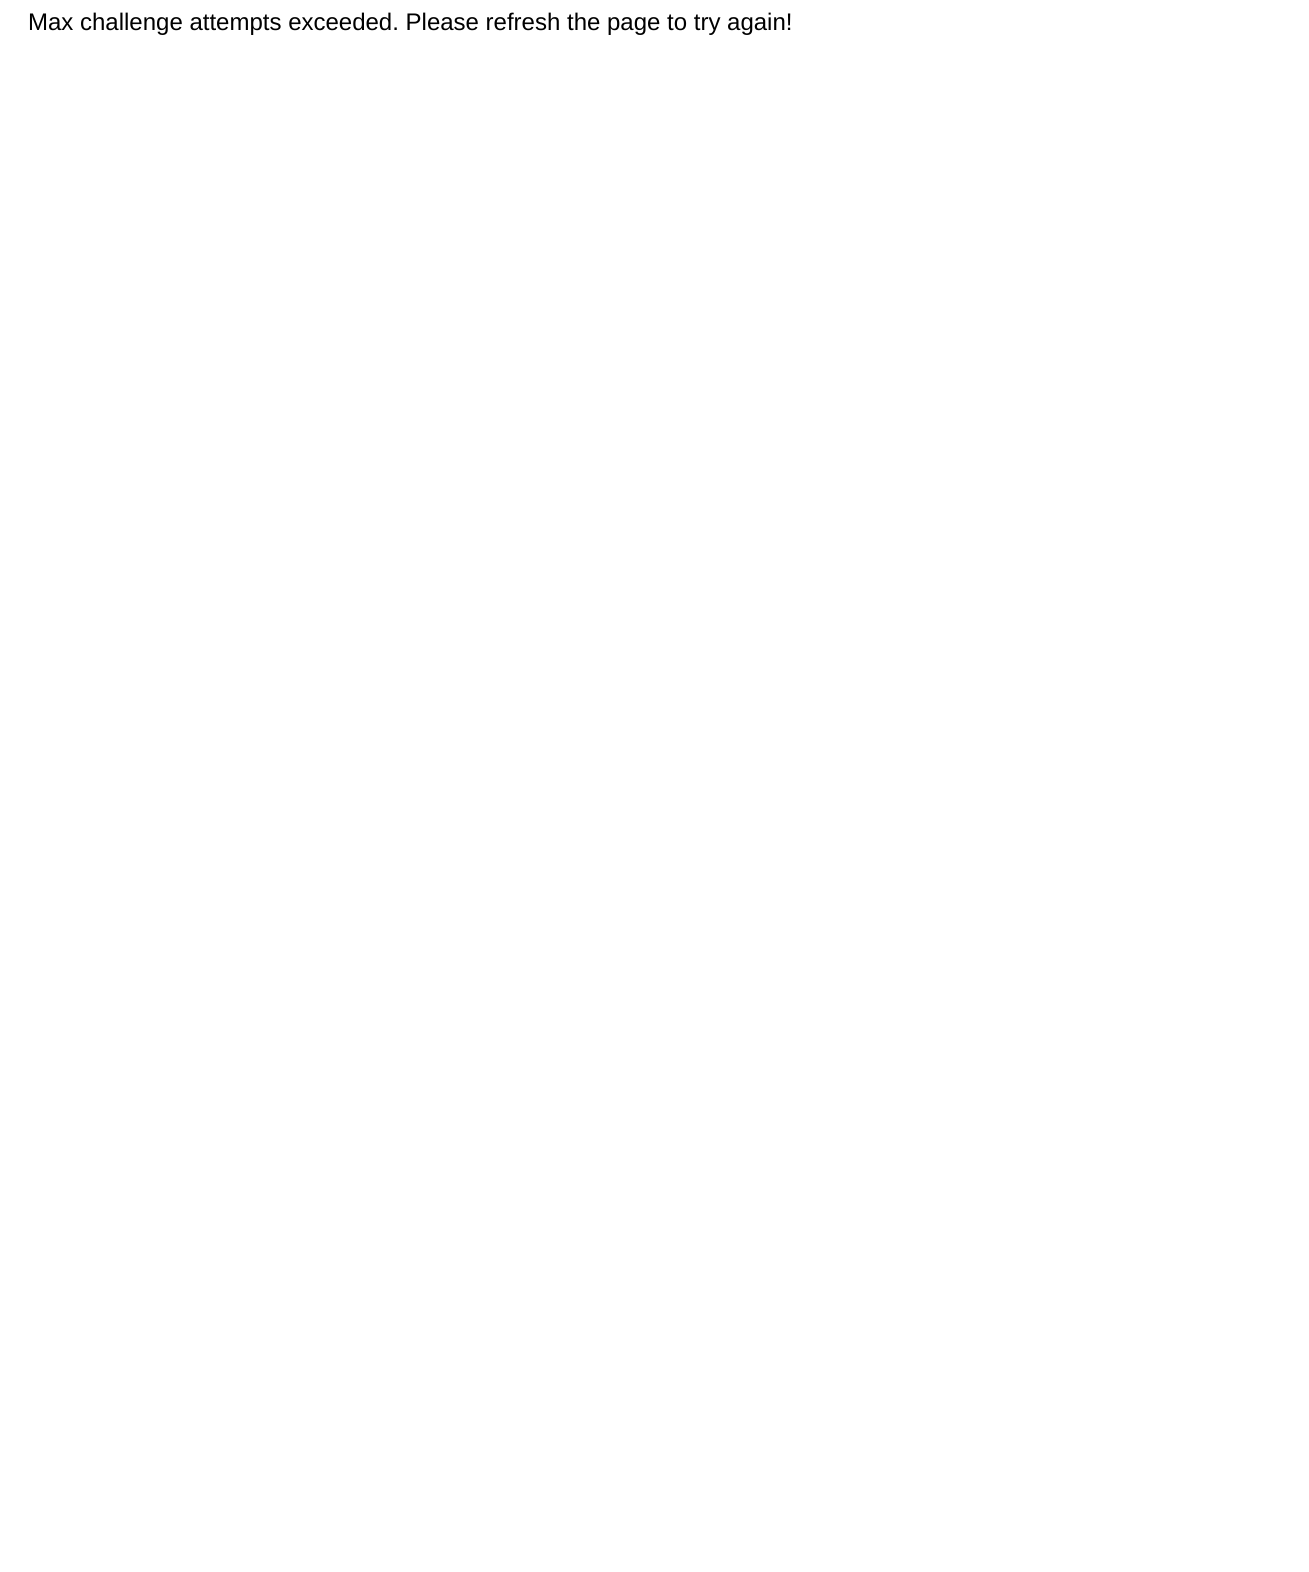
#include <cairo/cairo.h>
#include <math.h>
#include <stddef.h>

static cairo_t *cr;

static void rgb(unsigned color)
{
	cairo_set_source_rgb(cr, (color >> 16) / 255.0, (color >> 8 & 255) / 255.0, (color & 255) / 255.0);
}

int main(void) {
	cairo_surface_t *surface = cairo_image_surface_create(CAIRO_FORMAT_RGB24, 1309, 1572);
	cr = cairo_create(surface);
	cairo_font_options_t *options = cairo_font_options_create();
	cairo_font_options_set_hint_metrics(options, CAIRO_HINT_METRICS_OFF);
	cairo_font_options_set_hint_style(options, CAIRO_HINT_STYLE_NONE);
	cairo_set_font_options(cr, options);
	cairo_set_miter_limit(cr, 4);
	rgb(0xffffff);
	cairo_paint(cr);
	cairo_select_font_face(cr, "Liberation Sans", CAIRO_FONT_SLANT_NORMAL, CAIRO_FONT_WEIGHT_NORMAL);
	cairo_set_font_size(cr, 24);
	rgb(0x000000);
	cairo_move_to(cr, 28, 30);
	cairo_show_text(cr, "Max challenge attempts exceeded. Please refresh the page to try again!");
	cairo_surface_write_to_png(surface, "page.png");
	cairo_font_options_destroy(options);
	cairo_destroy(cr);
	cairo_surface_destroy(surface);
	return 0;
}
